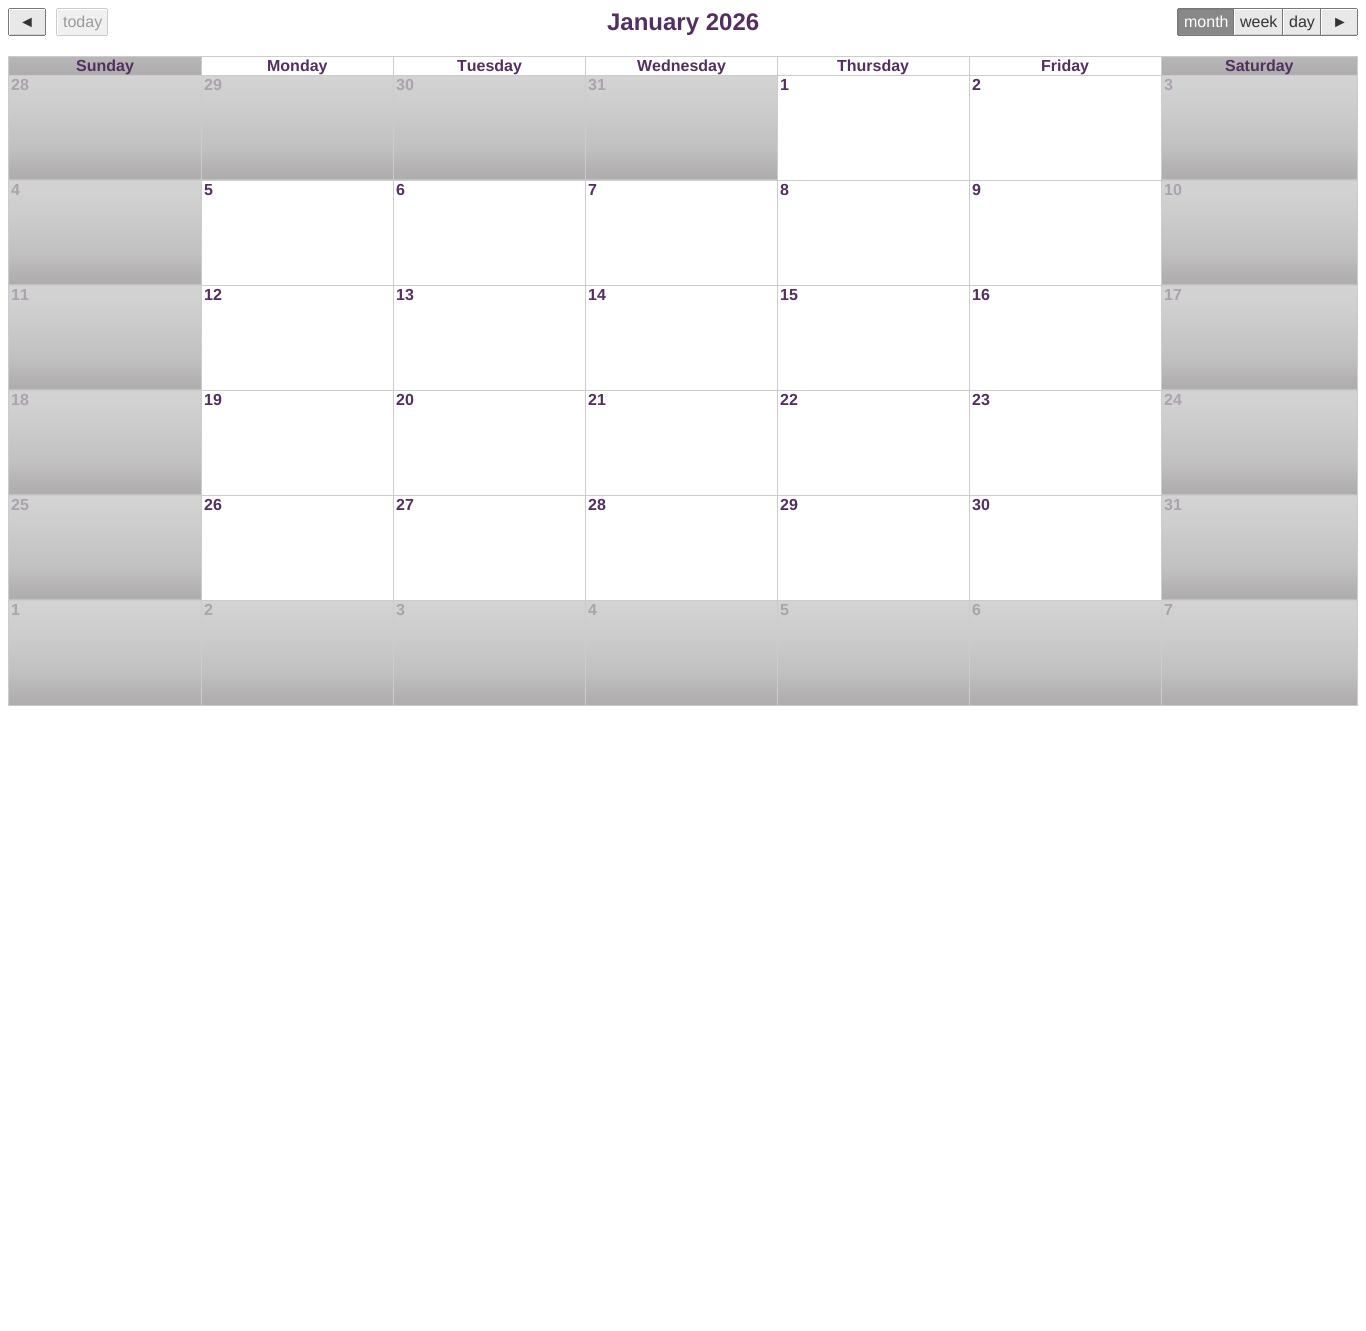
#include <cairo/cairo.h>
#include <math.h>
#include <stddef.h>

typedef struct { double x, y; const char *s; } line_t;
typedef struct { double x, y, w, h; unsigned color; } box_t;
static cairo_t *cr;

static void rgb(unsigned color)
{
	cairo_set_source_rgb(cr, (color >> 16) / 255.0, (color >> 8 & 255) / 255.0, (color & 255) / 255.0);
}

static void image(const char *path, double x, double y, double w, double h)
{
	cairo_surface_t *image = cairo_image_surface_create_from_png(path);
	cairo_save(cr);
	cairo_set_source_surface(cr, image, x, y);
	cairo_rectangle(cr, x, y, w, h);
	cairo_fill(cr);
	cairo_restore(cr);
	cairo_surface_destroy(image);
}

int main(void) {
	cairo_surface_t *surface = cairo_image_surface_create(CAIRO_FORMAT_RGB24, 1366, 1331);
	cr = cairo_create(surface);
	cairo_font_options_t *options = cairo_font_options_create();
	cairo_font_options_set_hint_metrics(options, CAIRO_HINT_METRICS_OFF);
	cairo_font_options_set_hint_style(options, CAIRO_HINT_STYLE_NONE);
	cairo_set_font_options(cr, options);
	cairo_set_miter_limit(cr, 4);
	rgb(0xffffff);
	cairo_paint(cr);
	{
		static const box_t items[] = {
			{9, 8, 36, 1, 0x777777},
			{9, 35, 36, 1, 0x777777},
			{45, 9, 1, 26, 0x777777},
			{8, 9, 1, 26, 0x777777},
			{10, 10, 35, 24, 0xe8e8e8},
			{9, 34, 36, 1, 0xd1d1d1},
			{9, 34, 1, 1, 0xffffff},
			{57, 8, 50, 1, 0xcccccc},
			{57, 35, 50, 1, 0xcccccc},
			{107, 9, 1, 26, 0xcccccc},
			{56, 9, 1, 26, 0xcccccc},
			{58, 10, 49, 24, 0xf0f0f0},
			{57, 34, 50, 1, 0xf0f0f0},
			{57, 34, 1, 1, 0xffffff},
			{1178, 8, 179, 1, 0x777777},
			{1178, 35, 179, 1, 0x777777},
			{1177, 9, 1, 26, 0x777777},
			{1179, 10, 54, 24, 0x888888},
			{1178, 9, 55, 1, 0x808080},
			{1178, 34, 55, 1, 0x909090},
			{1178, 9, 1, 26, 0x808080},
			{1233, 9, 1, 26, 0x777777},
			{1235, 10, 47, 24, 0xe8e8e8},
			{1234, 34, 48, 1, 0xd1d1d1},
			{1234, 34, 1, 1, 0xffffff},
			{1282, 9, 1, 26, 0x777777},
			{1284, 10, 36, 24, 0xe8e8e8},
			{1283, 34, 37, 1, 0xd1d1d1},
			{1283, 34, 1, 1, 0xffffff},
			{1357, 9, 1, 26, 0x777777},
			{1320, 9, 1, 26, 0x777777},
			{1322, 10, 35, 24, 0xe8e8e8},
			{1321, 34, 36, 1, 0xd1d1d1},
			{1321, 34, 1, 1, 0xffffff},
		};
		for (size_t i = 0; i < sizeof items / sizeof *items; i++) {
			rgb(items[i].color);
			cairo_rectangle(cr, items[i].x, items[i].y, items[i].w, items[i].h);
			cairo_fill(cr);
		}
	}
	cairo_rectangle(cr, 8.5, 56.5, 1349, 649);
	rgb(0xcccccc);
	cairo_set_line_width(cr, 1);
	cairo_stroke(cr);
	image("img/1.png", 9, 57, 192, 18);
	{
		static const box_t items[] = {
			{1161, 75, 196, 1, 0xcccccc},
			{1161, 180, 196, 1, 0xcccccc},
			{1161, 285, 196, 1, 0xcccccc},
			{1161, 390, 196, 1, 0xcccccc},
			{1161, 495, 196, 1, 0xcccccc},
			{1161, 600, 196, 1, 0xcccccc},
			{1161, 600, 1, 105, 0xcccccc},
			{969, 600, 193, 1, 0xcccccc},
			{1161, 495, 1, 106, 0xcccccc},
			{969, 495, 193, 1, 0xcccccc},
			{1161, 390, 1, 106, 0xcccccc},
			{969, 390, 193, 1, 0xcccccc},
			{1161, 285, 1, 106, 0xcccccc},
			{969, 285, 193, 1, 0xcccccc},
			{1161, 180, 1, 106, 0xcccccc},
			{969, 180, 193, 1, 0xcccccc},
			{1161, 75, 1, 106, 0xcccccc},
			{969, 75, 193, 1, 0xcccccc},
			{969, 600, 1, 105, 0xcccccc},
			{777, 600, 193, 1, 0xcccccc},
			{969, 495, 1, 106, 0xcccccc},
			{777, 495, 193, 1, 0xcccccc},
			{969, 390, 1, 106, 0xcccccc},
			{777, 390, 193, 1, 0xcccccc},
			{969, 285, 1, 106, 0xcccccc},
			{777, 285, 193, 1, 0xcccccc},
			{969, 180, 1, 106, 0xcccccc},
			{777, 180, 193, 1, 0xcccccc},
			{969, 75, 1, 106, 0xcccccc},
			{777, 75, 193, 1, 0xcccccc},
			{777, 600, 1, 105, 0xcccccc},
			{585, 600, 193, 1, 0xcccccc},
			{777, 495, 1, 106, 0xcccccc},
			{585, 495, 193, 1, 0xcccccc},
			{777, 390, 1, 106, 0xcccccc},
			{585, 390, 193, 1, 0xcccccc},
			{777, 285, 1, 106, 0xcccccc},
			{585, 285, 193, 1, 0xcccccc},
			{777, 180, 1, 106, 0xcccccc},
			{585, 180, 193, 1, 0xcccccc},
			{777, 75, 1, 106, 0xcccccc},
			{585, 75, 193, 1, 0xcccccc},
			{585, 600, 1, 105, 0xcccccc},
			{393, 600, 193, 1, 0xcccccc},
			{585, 495, 1, 106, 0xcccccc},
			{393, 495, 193, 1, 0xcccccc},
			{585, 390, 1, 106, 0xcccccc},
			{393, 390, 193, 1, 0xcccccc},
			{585, 285, 1, 106, 0xcccccc},
			{393, 285, 193, 1, 0xcccccc},
			{585, 180, 1, 106, 0xcccccc},
			{393, 180, 193, 1, 0xcccccc},
			{585, 75, 1, 106, 0xcccccc},
			{393, 75, 193, 1, 0xcccccc},
			{393, 600, 1, 105, 0xcccccc},
			{201, 600, 193, 1, 0xcccccc},
			{393, 495, 1, 106, 0xcccccc},
			{201, 495, 193, 1, 0xcccccc},
			{393, 390, 1, 106, 0xcccccc},
			{201, 390, 193, 1, 0xcccccc},
			{393, 285, 1, 106, 0xcccccc},
			{201, 285, 193, 1, 0xcccccc},
			{393, 180, 1, 106, 0xcccccc},
			{201, 180, 193, 1, 0xcccccc},
			{393, 75, 1, 106, 0xcccccc},
			{201, 75, 193, 1, 0xcccccc},
			{201, 600, 1, 105, 0xcccccc},
			{9, 600, 193, 1, 0xcccccc},
			{201, 495, 1, 106, 0xcccccc},
			{9, 495, 193, 1, 0xcccccc},
			{201, 390, 1, 106, 0xcccccc},
			{9, 390, 193, 1, 0xcccccc},
			{201, 285, 1, 106, 0xcccccc},
			{9, 285, 193, 1, 0xcccccc},
			{201, 180, 1, 106, 0xcccccc},
			{9, 180, 193, 1, 0xcccccc},
			{201, 75, 1, 106, 0xcccccc},
			{9, 75, 193, 1, 0xcccccc},
			{201, 57, 1, 19, 0xcccccc},
			{393, 57, 1, 19, 0xcccccc},
			{585, 57, 1, 19, 0xcccccc},
			{777, 57, 1, 19, 0xcccccc},
			{969, 57, 1, 19, 0xcccccc},
		};
		for (size_t i = 0; i < sizeof items / sizeof *items; i++) {
			rgb(items[i].color);
			cairo_rectangle(cr, items[i].x, items[i].y, items[i].w, items[i].h);
			cairo_fill(cr);
		}
	}
	image("img/2.png", 1162, 57, 195, 18);
	cairo_rectangle(cr, 1161, 57, 1, 19);
	cairo_fill(cr);
	image("img/3.png", 9, 76, 192, 104);
	image("img/4.png", 202, 76, 191, 104);
	image("img/4.png", 394, 76, 191, 104);
	image("img/4.png", 586, 76, 191, 104);
	image("img/5.png", 1162, 76, 195, 104);
	image("img/3.png", 9, 181, 192, 104);
	image("img/5.png", 1162, 181, 195, 104);
	image("img/3.png", 9, 286, 192, 104);
	image("img/5.png", 1162, 286, 195, 104);
	image("img/3.png", 9, 391, 192, 104);
	image("img/5.png", 1162, 391, 195, 104);
	image("img/3.png", 9, 496, 192, 104);
	image("img/5.png", 1162, 496, 195, 104);
	image("img/6.png", 9, 601, 192, 104);
	image("img/7.png", 202, 601, 191, 104);
	image("img/7.png", 394, 601, 191, 104);
	image("img/7.png", 586, 601, 191, 104);
	image("img/7.png", 778, 601, 191, 104);
	image("img/7.png", 970, 601, 191, 104);
	image("img/8.png", 1162, 601, 195, 104);
	cairo_select_font_face(cr, "Liberation Sans", CAIRO_FONT_SLANT_NORMAL, CAIRO_FONT_WEIGHT_NORMAL);
	cairo_set_font_size(cr, 16);
	rgb(0x333333);
	cairo_move_to(cr, 19, 27);
	cairo_show_text(cr, "◄");
	rgb(0x999999);
	cairo_move_to(cr, 63, 27);
	cairo_show_text(cr, "today");
	cairo_select_font_face(cr, "Liberation Sans", CAIRO_FONT_SLANT_NORMAL, CAIRO_FONT_WEIGHT_BOLD);
	cairo_set_font_size(cr, 24);
	rgb(0x532f5f);
	cairo_move_to(cr, 607, 30);
	cairo_show_text(cr, "January 2026");
	cairo_select_font_face(cr, "Liberation Sans", CAIRO_FONT_SLANT_NORMAL, CAIRO_FONT_WEIGHT_NORMAL);
	cairo_set_font_size(cr, 16);
	rgb(0xffffff);
	cairo_move_to(cr, 1184, 27);
	cairo_show_text(cr, "month");
	rgb(0x333333);
	{
		static const line_t items[] = {
			{1240, 27, "week"},
			{1289, 27, "day"},
			{1332, 27, "►"},
		};
		for (size_t i = 0; i < sizeof items / sizeof *items; i++) {
			cairo_move_to(cr, items[i].x, items[i].y);
			cairo_show_text(cr, items[i].s);
		}
	}
	cairo_select_font_face(cr, "Liberation Sans", CAIRO_FONT_SLANT_NORMAL, CAIRO_FONT_WEIGHT_BOLD);
	rgb(0x532f5f);
	{
		static const line_t items[] = {
			{76, 71, "Sunday"},
			{267, 71, "Monday"},
			{457, 71, "Tuesday"},
			{637, 71, "Wednesday"},
			{837, 71, "Thursday"},
			{1041, 71, "Friday"},
			{1225, 71, "Saturday"},
		};
		for (size_t i = 0; i < sizeof items / sizeof *items; i++) {
			cairo_move_to(cr, items[i].x, items[i].y);
			cairo_show_text(cr, items[i].s);
		}
	}
	rgb(0xaca1af);
	{
		static const line_t items[] = {
			{11, 90, "28"},
			{204, 90, "29"},
			{396, 90, "30"},
			{588, 90, "31"},
		};
		for (size_t i = 0; i < sizeof items / sizeof *items; i++) {
			cairo_move_to(cr, items[i].x, items[i].y);
			cairo_show_text(cr, items[i].s);
		}
	}
	rgb(0x532f5f);
	cairo_move_to(cr, 780, 90);
	cairo_show_text(cr, "1");
	cairo_move_to(cr, 972, 90);
	cairo_show_text(cr, "2");
	rgb(0xaca1af);
	cairo_move_to(cr, 1164, 90);
	cairo_show_text(cr, "3");
	cairo_move_to(cr, 11, 195);
	cairo_show_text(cr, "4");
	rgb(0x532f5f);
	{
		static const line_t items[] = {
			{204, 195, "5"},
			{396, 195, "6"},
			{588, 195, "7"},
			{780, 195, "8"},
			{972, 195, "9"},
		};
		for (size_t i = 0; i < sizeof items / sizeof *items; i++) {
			cairo_move_to(cr, items[i].x, items[i].y);
			cairo_show_text(cr, items[i].s);
		}
	}
	rgb(0xaca1af);
	cairo_move_to(cr, 1164, 195);
	cairo_show_text(cr, "10");
	cairo_move_to(cr, 11, 300);
	cairo_show_text(cr, "11");
	rgb(0x532f5f);
	{
		static const line_t items[] = {
			{204, 300, "12"},
			{396, 300, "13"},
			{588, 300, "14"},
			{780, 300, "15"},
			{972, 300, "16"},
		};
		for (size_t i = 0; i < sizeof items / sizeof *items; i++) {
			cairo_move_to(cr, items[i].x, items[i].y);
			cairo_show_text(cr, items[i].s);
		}
	}
	rgb(0xaca1af);
	cairo_move_to(cr, 1164, 300);
	cairo_show_text(cr, "17");
	cairo_move_to(cr, 11, 405);
	cairo_show_text(cr, "18");
	rgb(0x532f5f);
	{
		static const line_t items[] = {
			{204, 405, "19"},
			{396, 405, "20"},
			{588, 405, "21"},
			{780, 405, "22"},
			{972, 405, "23"},
		};
		for (size_t i = 0; i < sizeof items / sizeof *items; i++) {
			cairo_move_to(cr, items[i].x, items[i].y);
			cairo_show_text(cr, items[i].s);
		}
	}
	rgb(0xaca1af);
	cairo_move_to(cr, 1164, 405);
	cairo_show_text(cr, "24");
	cairo_move_to(cr, 11, 510);
	cairo_show_text(cr, "25");
	rgb(0x532f5f);
	{
		static const line_t items[] = {
			{204, 510, "26"},
			{396, 510, "27"},
			{588, 510, "28"},
			{780, 510, "29"},
			{972, 510, "30"},
		};
		for (size_t i = 0; i < sizeof items / sizeof *items; i++) {
			cairo_move_to(cr, items[i].x, items[i].y);
			cairo_show_text(cr, items[i].s);
		}
	}
	rgb(0xaca1af);
	{
		static const line_t items[] = {
			{1164, 510, "31"},
			{11, 615, "1"},
			{204, 615, "2"},
			{396, 615, "3"},
			{588, 615, "4"},
			{780, 615, "5"},
			{972, 615, "6"},
			{1164, 615, "7"},
		};
		for (size_t i = 0; i < sizeof items / sizeof *items; i++) {
			cairo_move_to(cr, items[i].x, items[i].y);
			cairo_show_text(cr, items[i].s);
		}
	}
	cairo_surface_write_to_png(surface, "page.png");
	cairo_font_options_destroy(options);
	cairo_destroy(cr);
	cairo_surface_destroy(surface);
	return 0;
}
